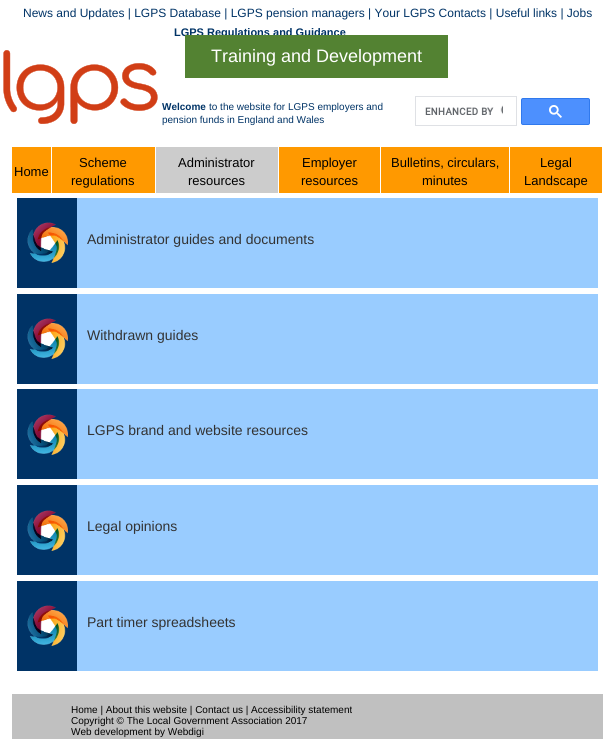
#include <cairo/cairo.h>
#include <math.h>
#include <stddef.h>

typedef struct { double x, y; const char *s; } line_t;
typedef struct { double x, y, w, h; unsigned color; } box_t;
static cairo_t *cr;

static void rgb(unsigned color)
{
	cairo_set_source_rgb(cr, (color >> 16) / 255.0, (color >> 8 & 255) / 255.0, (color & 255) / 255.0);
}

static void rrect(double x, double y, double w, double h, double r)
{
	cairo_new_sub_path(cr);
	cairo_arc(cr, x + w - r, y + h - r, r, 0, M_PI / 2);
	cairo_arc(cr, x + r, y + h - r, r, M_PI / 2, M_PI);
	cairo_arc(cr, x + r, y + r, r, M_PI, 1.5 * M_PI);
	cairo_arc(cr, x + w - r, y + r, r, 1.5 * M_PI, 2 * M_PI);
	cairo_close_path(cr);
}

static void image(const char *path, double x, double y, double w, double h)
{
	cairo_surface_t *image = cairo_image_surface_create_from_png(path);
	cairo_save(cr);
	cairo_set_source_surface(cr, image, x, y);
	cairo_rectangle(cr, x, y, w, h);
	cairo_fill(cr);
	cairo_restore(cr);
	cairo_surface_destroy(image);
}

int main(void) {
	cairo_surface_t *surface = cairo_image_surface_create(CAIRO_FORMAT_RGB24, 615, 739);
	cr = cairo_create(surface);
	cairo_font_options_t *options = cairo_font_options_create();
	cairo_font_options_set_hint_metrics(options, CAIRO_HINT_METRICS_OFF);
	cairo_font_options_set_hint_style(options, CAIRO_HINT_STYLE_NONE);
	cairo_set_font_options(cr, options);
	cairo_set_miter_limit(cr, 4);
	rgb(0xffffff);
	cairo_paint(cr);
	image("img/1.png", 3, 50, 155, 74);
	cairo_rectangle(cr, 415.5, 96.5, 101, 29);
	rgb(0xdfe1e5);
	cairo_set_line_width(cr, 1);
	cairo_stroke(cr);
	image("img/2.png", 425, 105, 78, 10);
	rgb(0x4d90fe);
	rrect(521.5, 98.5, 68, 26, 1.5);
	cairo_fill_preserve(cr);
	rgb(0x3079ed);
	cairo_stroke(cr);
	image("img/3.png", 549, 105, 13, 13);
	{
		static const box_t items[] = {
			{12, 147, 39, 46, 0xff9900},
			{52, 147, 103, 46, 0xff9900},
			{156, 147, 122, 46, 0xcccccc},
			{279, 147, 101, 46, 0xff9900},
			{381, 147, 128, 46, 0xff9900},
			{510, 147, 92, 46, 0xff9900},
			{77, 198, 521, 90, 0x99ccff},
			{17, 198, 60, 90, 0x003366},
		};
		for (size_t i = 0; i < sizeof items / sizeof *items; i++) {
			rgb(items[i].color);
			cairo_rectangle(cr, items[i].x, items[i].y, items[i].w, items[i].h);
			cairo_fill(cr);
		}
	}
	image("img/4.png", 27, 222, 42, 41);
	rgb(0x99ccff);
	cairo_rectangle(cr, 77, 294, 521, 90);
	cairo_fill(cr);
	rgb(0x003366);
	cairo_rectangle(cr, 17, 294, 60, 90);
	cairo_fill(cr);
	image("img/4.png", 27, 318, 42, 41);
	rgb(0x99ccff);
	cairo_rectangle(cr, 77, 389, 521, 90);
	cairo_fill(cr);
	rgb(0x003366);
	cairo_rectangle(cr, 17, 389, 60, 90);
	cairo_fill(cr);
	image("img/4.png", 27, 414, 42, 41);
	rgb(0x99ccff);
	cairo_rectangle(cr, 77, 485, 521, 90);
	cairo_fill(cr);
	rgb(0x003366);
	cairo_rectangle(cr, 17, 485, 60, 90);
	cairo_fill(cr);
	image("img/4.png", 27, 510, 42, 41);
	rgb(0x99ccff);
	cairo_rectangle(cr, 77, 581, 521, 90);
	cairo_fill(cr);
	rgb(0x003366);
	cairo_rectangle(cr, 17, 581, 60, 90);
	cairo_fill(cr);
	image("img/4.png", 27, 605, 42, 41);
	rgb(0xc0c0c0);
	cairo_rectangle(cr, 12, 694, 591, 45);
	cairo_fill(cr);
	cairo_select_font_face(cr, "Liberation Sans", CAIRO_FONT_SLANT_NORMAL, CAIRO_FONT_WEIGHT_NORMAL);
	cairo_set_font_size(cr, 12);
	rgb(0x003366);
	cairo_move_to(cr, 23, 17);
	cairo_show_text(cr, "News and Updates | LGPS Database | LGPS pension managers | Your LGPS Contacts | Useful links | Jobs");
	cairo_select_font_face(cr, "Liberation Sans", CAIRO_FONT_SLANT_NORMAL, CAIRO_FONT_WEIGHT_BOLD);
	cairo_set_font_size(cr, 11);
	cairo_move_to(cr, 174, 36);
	cairo_show_text(cr, "LGPS Regulations and Guidance");
	rgb(0x538232);
	cairo_rectangle(cr, 185, 35, 263, 43);
	cairo_fill(cr);
	cairo_select_font_face(cr, "Liberation Sans", CAIRO_FONT_SLANT_NORMAL, CAIRO_FONT_WEIGHT_NORMAL);
	cairo_set_font_size(cr, 18);
	rgb(0xffffff);
	cairo_move_to(cr, 211, 62);
	cairo_show_text(cr, "Training and Development");
	cairo_select_font_face(cr, "Liberation Sans", CAIRO_FONT_SLANT_NORMAL, CAIRO_FONT_WEIGHT_BOLD);
	cairo_set_font_size(cr, 10);
	rgb(0x003366);
	cairo_move_to(cr, 162, 110);
	cairo_show_text(cr, "Welcome");
	cairo_select_font_face(cr, "Liberation Sans", CAIRO_FONT_SLANT_NORMAL, CAIRO_FONT_WEIGHT_NORMAL);
	cairo_move_to(cr, 209, 110);
	cairo_show_text(cr, "to the website for LGPS employers and");
	cairo_move_to(cr, 162, 123);
	cairo_show_text(cr, "pension funds in England and Wales");
	cairo_set_font_size(cr, 13);
	rgb(0x000000);
	{
		static const line_t items[] = {
			{14, 176, "Home"},
			{79, 167, "Scheme"},
			{71, 185, "regulations"},
			{178, 167, "Administrator"},
			{188, 185, "resources"},
			{302, 167, "Employer"},
			{301, 185, "resources"},
			{391, 167, "Bulletins, circulars,"},
			{422, 185, "minutes"},
			{540, 167, "Legal"},
			{524, 185, "Landscape"},
		};
		for (size_t i = 0; i < sizeof items / sizeof *items; i++) {
			cairo_move_to(cr, items[i].x, items[i].y);
			cairo_show_text(cr, items[i].s);
		}
	}
	cairo_set_font_size(cr, 14);
	rgb(0x333333);
	{
		static const line_t items[] = {
			{87, 244, "Administrator guides and documents"},
			{87, 340, "Withdrawn guides"},
			{87, 435, "LGPS brand and website resources"},
			{87, 531, "Legal opinions"},
			{87, 627, "Part timer spreadsheets"},
		};
		for (size_t i = 0; i < sizeof items / sizeof *items; i++) {
			cairo_move_to(cr, items[i].x, items[i].y);
			cairo_show_text(cr, items[i].s);
		}
	}
	cairo_set_font_size(cr, 10);
	rgb(0x000000);
	{
		static const line_t items[] = {
			{71, 713, "Home | About this website | Contact us | Accessibility statement"},
			{71, 724, "Copyright © The Local Government Association 2017"},
			{71, 735, "Web development by Webdigi"},
		};
		for (size_t i = 0; i < sizeof items / sizeof *items; i++) {
			cairo_move_to(cr, items[i].x, items[i].y);
			cairo_show_text(cr, items[i].s);
		}
	}
	cairo_surface_write_to_png(surface, "page.png");
	cairo_font_options_destroy(options);
	cairo_destroy(cr);
	cairo_surface_destroy(surface);
	return 0;
}
